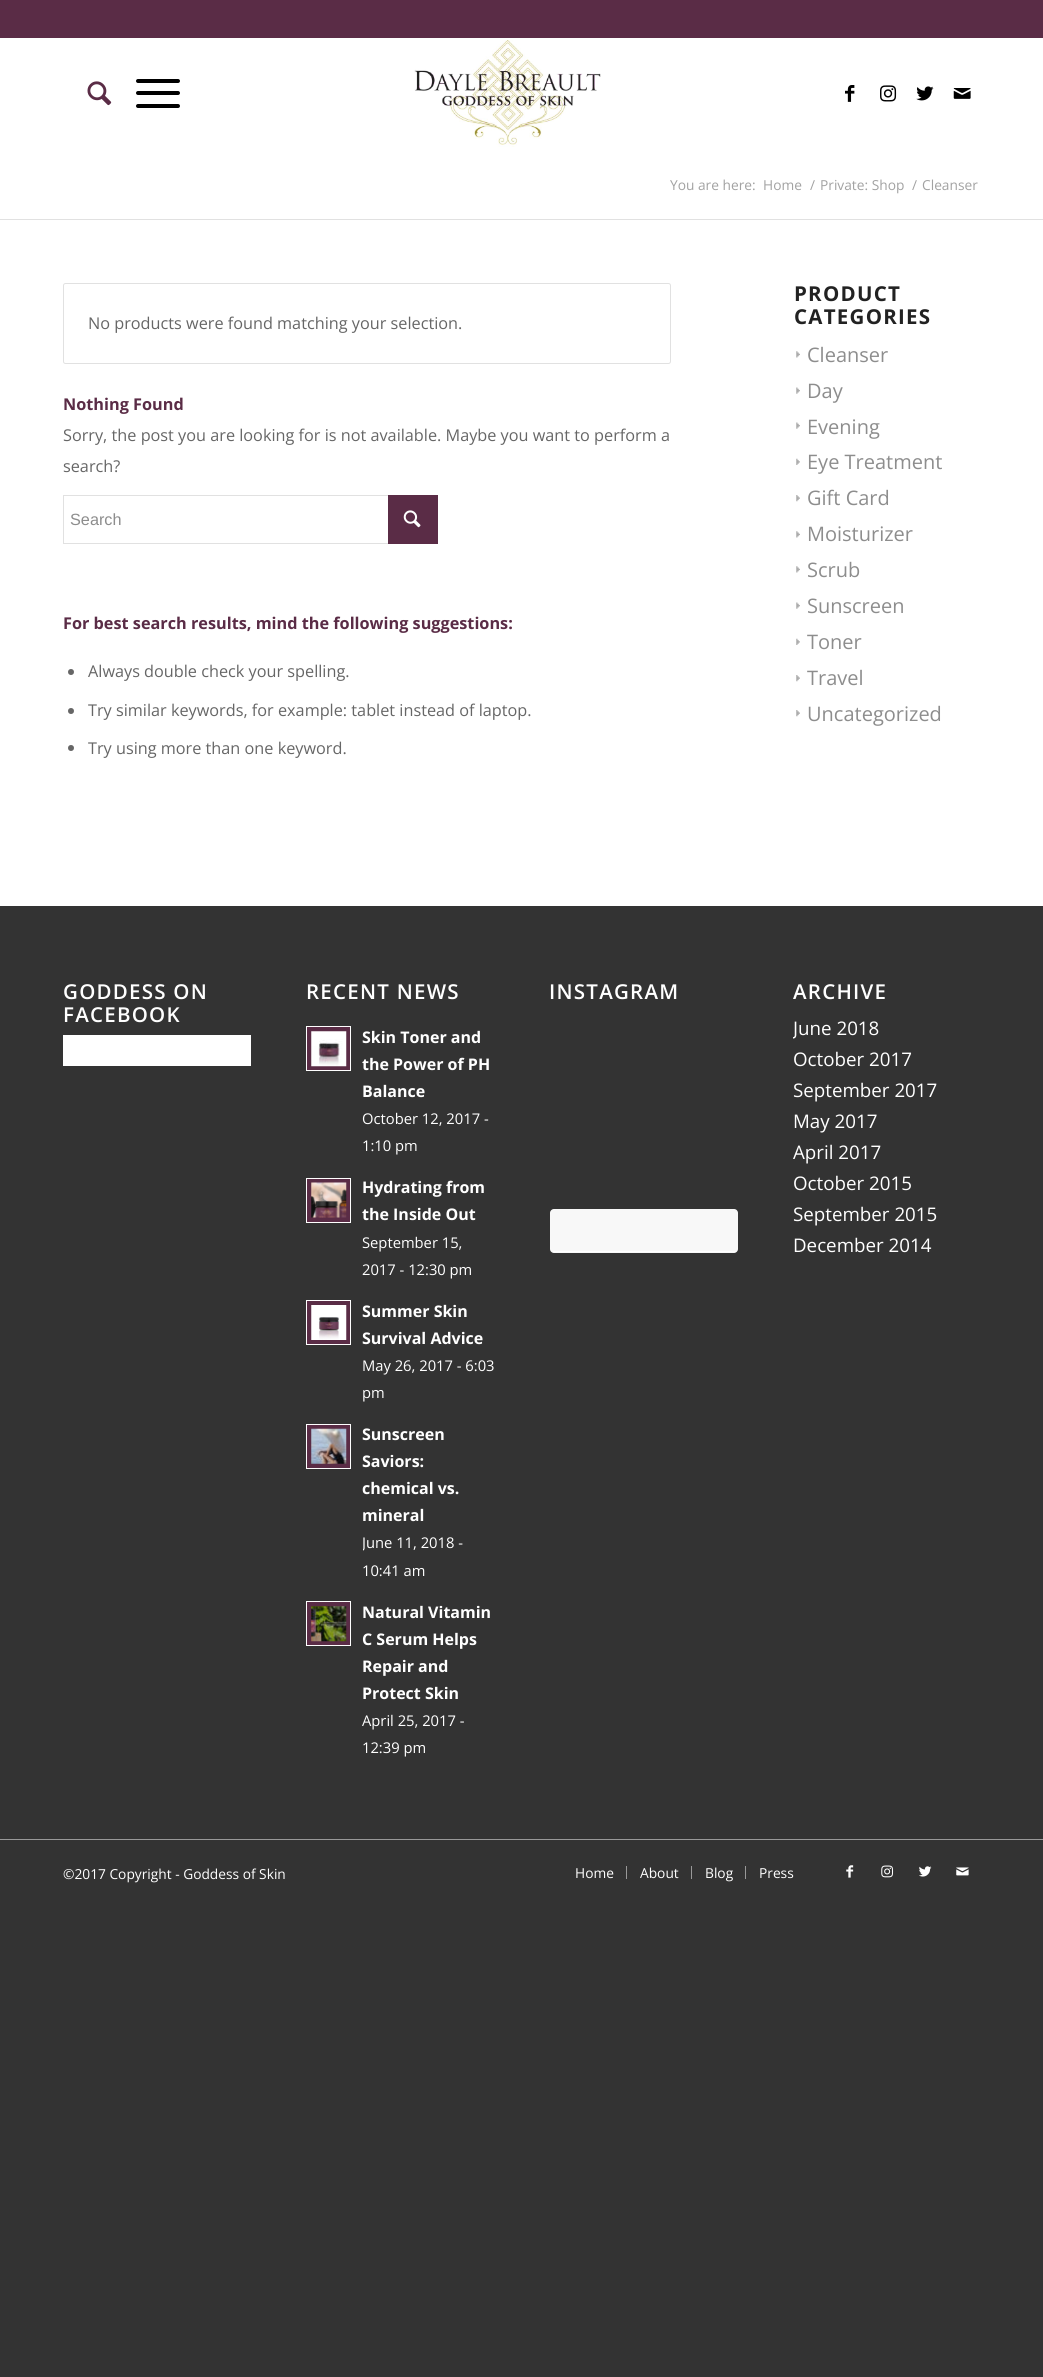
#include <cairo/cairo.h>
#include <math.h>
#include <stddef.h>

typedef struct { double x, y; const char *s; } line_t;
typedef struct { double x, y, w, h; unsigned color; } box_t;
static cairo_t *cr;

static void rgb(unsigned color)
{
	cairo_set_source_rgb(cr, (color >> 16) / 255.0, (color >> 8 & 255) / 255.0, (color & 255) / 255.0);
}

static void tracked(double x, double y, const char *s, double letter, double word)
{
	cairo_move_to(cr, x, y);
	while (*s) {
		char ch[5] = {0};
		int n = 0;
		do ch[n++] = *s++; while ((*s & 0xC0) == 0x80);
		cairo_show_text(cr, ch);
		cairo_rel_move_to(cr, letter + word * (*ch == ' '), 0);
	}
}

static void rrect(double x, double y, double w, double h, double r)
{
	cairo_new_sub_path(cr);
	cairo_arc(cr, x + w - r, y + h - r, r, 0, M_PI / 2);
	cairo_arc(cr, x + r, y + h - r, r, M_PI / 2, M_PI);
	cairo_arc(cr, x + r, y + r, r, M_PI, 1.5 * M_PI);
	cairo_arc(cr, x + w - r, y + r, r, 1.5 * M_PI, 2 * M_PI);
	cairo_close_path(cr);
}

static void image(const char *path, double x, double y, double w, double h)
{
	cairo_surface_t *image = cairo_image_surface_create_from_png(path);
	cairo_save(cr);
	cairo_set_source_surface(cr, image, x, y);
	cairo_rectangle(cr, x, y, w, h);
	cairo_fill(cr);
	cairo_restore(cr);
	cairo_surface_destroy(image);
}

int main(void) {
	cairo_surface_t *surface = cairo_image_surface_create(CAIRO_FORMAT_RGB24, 1043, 2377);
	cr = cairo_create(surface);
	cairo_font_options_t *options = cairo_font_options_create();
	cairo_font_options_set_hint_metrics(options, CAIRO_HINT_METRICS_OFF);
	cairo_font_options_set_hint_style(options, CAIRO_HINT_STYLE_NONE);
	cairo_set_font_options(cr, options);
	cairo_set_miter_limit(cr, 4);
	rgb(0x333333);
	cairo_paint(cr);
	rgb(0x5a2c46);
	cairo_rectangle(cr, 0, 0, 1043, 38);
	cairo_fill(cr);
	rgb(0xffffff);
	cairo_rectangle(cr, 0, 38, 1043, 868);
	cairo_fill(cr);
	image("img/1.png", 414, 40, 187, 107);
	image("img/2.png", 87, 81, 25, 25);
	rgb(0x000000);
	rrect(136, 91, 44, 4, 2);
	cairo_fill(cr);
	rrect(136, 79, 44, 4, 2);
	cairo_fill(cr);
	rrect(136, 104, 44, 4, 2);
	cairo_fill(cr);
	image("img/3.png", 845, 85, 10, 17);
	image("img/4.png", 880, 85, 17, 17);
	image("img/5.png", 916, 86, 18, 15);
	image("img/6.png", 953, 88, 18, 11);
	rgb(0xe1e1e1);
	cairo_rectangle(cr, 0, 219, 1043, 1);
	cairo_fill(cr);
	rrect(63.5, 283.5, 607, 80, 2);
	cairo_set_line_width(cr, 1);
	cairo_stroke(cr);
	cairo_rectangle(cr, 63.5, 495.5, 374, 48);
	cairo_stroke(cr);
	rgb(0x5a2c46);
	cairo_rectangle(cr, 388, 495, 50, 49);
	cairo_fill(cr);
	image("img/7.png", 403, 510, 18, 18);
	rgb(0x666666);
	cairo_arc(cr, 71, 672, 3, 0, 2 * M_PI);
	cairo_fill(cr);
	cairo_arc(cr, 71, 711, 3, 0, 2 * M_PI);
	cairo_fill(cr);
	cairo_arc(cr, 71, 748, 3, 0, 2 * M_PI);
	cairo_fill(cr);
	image("img/8.png", 796, 351, 4, 7);
	image("img/9.png", 796, 387, 4, 7);
	image("img/9.png", 796, 422, 4, 7);
	image("img/10.png", 796, 458, 4, 7);
	image("img/11.png", 796, 495, 4, 7);
	image("img/8.png", 796, 531, 4, 7);
	image("img/8.png", 796, 566, 4, 7);
	image("img/9.png", 796, 602, 4, 7);
	image("img/10.png", 796, 638, 4, 7);
	image("img/11.png", 796, 675, 4, 7);
	image("img/11.png", 796, 710, 4, 7);
	rgb(0xffffff);
	cairo_rectangle(cr, 63, 1035, 188, 31);
	cairo_fill(cr);
	rgb(0x5a2c46);
	cairo_rectangle(cr, 306.5, 1026.5, 44, 44);
	cairo_fill_preserve(cr);
	rgb(0xffffff);
	cairo_stroke(cr);
	image("img/12.png", 311, 1031, 36, 36);
	rgb(0x5a2c46);
	cairo_rectangle(cr, 306.5, 1178.5, 44, 44);
	cairo_fill_preserve(cr);
	rgb(0xffffff);
	cairo_stroke(cr);
	image("img/13.png", 311, 1182, 36, 36);
	rgb(0x5a2c46);
	cairo_rectangle(cr, 306.5, 1300.5, 44, 44);
	cairo_fill_preserve(cr);
	rgb(0xffffff);
	cairo_stroke(cr);
	image("img/14.png", 311, 1305, 36, 35);
	rgb(0x5a2c46);
	cairo_rectangle(cr, 306.5, 1424.5, 44, 44);
	cairo_fill_preserve(cr);
	rgb(0xffffff);
	cairo_stroke(cr);
	image("img/15.png", 311, 1428, 36, 36);
	rgb(0x5a2c46);
	cairo_rectangle(cr, 306.5, 1601.5, 44, 44);
	cairo_fill_preserve(cr);
	rgb(0xffffff);
	cairo_stroke(cr);
	image("img/16.png", 311, 1606, 36, 36);
	rgb(0xf8f8f8);
	rrect(550, 1209, 188, 44, 4);
	cairo_fill(cr);
	{
		static const box_t items[] = {
			{553, 1251, 183, 1, 0xffffff},
			{0, 1839, 1043, 1, 0x999999},
			{626, 1866, 1, 13, 0x999999},
			{691, 1866, 1, 13, 0x999999},
			{745, 1866, 1, 13, 0x999999},
		};
		for (size_t i = 0; i < sizeof items / sizeof *items; i++) {
			rgb(items[i].color);
			cairo_rectangle(cr, items[i].x, items[i].y, items[i].w, items[i].h);
			cairo_fill(cr);
		}
	}
	image("img/17.png", 846, 1865, 8, 13);
	image("img/18.png", 881, 1865, 13, 13);
	image("img/19.png", 919, 1866, 13, 11);
	image("img/20.png", 956, 1867, 13, 9);
	cairo_select_font_face(cr, "Open Sans", CAIRO_FONT_SLANT_NORMAL, CAIRO_FONT_WEIGHT_NORMAL);
	cairo_set_font_size(cr, 13.75);
	rgb(0xa2a2a2);
	{
		static const line_t items[] = {
			{670, 190, "You are here:"},
			{763, 190, "Home"},
			{810, 190, "/"},
			{820, 190, "Private: Shop"},
			{912, 190, "/"},
			{922, 190, "Cleanser"},
		};
		for (size_t i = 0; i < sizeof items / sizeof *items; i++) {
			cairo_move_to(cr, items[i].x, items[i].y);
			cairo_show_text(cr, items[i].s);
		}
	}
	cairo_set_font_size(cr, 16.25);
	rgb(0x666666);
	cairo_move_to(cr, 88, 329);
	cairo_show_text(cr, "No products were found matching your selection.");
	cairo_select_font_face(cr, "Open Sans", CAIRO_FONT_SLANT_NORMAL, CAIRO_FONT_WEIGHT_BOLD);
	rgb(0x5a2c46);
	cairo_move_to(cr, 63, 410);
	cairo_show_text(cr, "Nothing Found");
	cairo_select_font_face(cr, "Open Sans", CAIRO_FONT_SLANT_NORMAL, CAIRO_FONT_WEIGHT_NORMAL);
	rgb(0x666666);
	cairo_move_to(cr, 63, 441);
	cairo_show_text(cr, "Sorry, the post you are looking for is not available. Maybe you want to perform a");
	cairo_move_to(cr, 63, 472);
	cairo_show_text(cr, "search?");
	cairo_select_font_face(cr, "Liberation Sans", CAIRO_FONT_SLANT_NORMAL, CAIRO_FONT_WEIGHT_NORMAL);
	rgb(0x8d8d8d);
	cairo_move_to(cr, 70, 525);
	cairo_show_text(cr, "Search");
	cairo_select_font_face(cr, "Open Sans", CAIRO_FONT_SLANT_NORMAL, CAIRO_FONT_WEIGHT_BOLD);
	rgb(0x5a2c46);
	cairo_move_to(cr, 63, 629);
	cairo_show_text(cr, "For best search results, mind the following suggestions:");
	cairo_select_font_face(cr, "Open Sans", CAIRO_FONT_SLANT_NORMAL, CAIRO_FONT_WEIGHT_NORMAL);
	rgb(0x666666);
	{
		static const line_t items[] = {
			{88, 677, "Always double check your spelling."},
			{88, 716, "Try similar keywords, for example: tablet instead of laptop."},
			{88, 754, "Try using more than one keyword."},
		};
		for (size_t i = 0; i < sizeof items / sizeof *items; i++) {
			cairo_move_to(cr, items[i].x, items[i].y);
			cairo_show_text(cr, items[i].s);
		}
	}
	cairo_select_font_face(cr, "Open Sans", CAIRO_FONT_SLANT_NORMAL, CAIRO_FONT_WEIGHT_BOLD);
	cairo_set_font_size(cr, 20.5);
	rgb(0x222222);
	tracked(794, 301, "PRODUCT", 1.25, 0);
	tracked(794, 324, "CATEGORIES", 1.25, 0);
	cairo_select_font_face(cr, "Open Sans", CAIRO_FONT_SLANT_NORMAL, CAIRO_FONT_WEIGHT_NORMAL);
	cairo_set_font_size(cr, 20);
	rgb(0x8d8d8d);
	{
		static const line_t items[] = {
			{807, 362, "Cleanser"},
			{807, 398, "Day"},
			{807, 434, "Evening"},
			{807, 469, "Eye Treatment"},
			{807, 505, "Gift Card"},
			{807, 541, "Moisturizer"},
			{807, 577, "Scrub"},
			{807, 613, "Sunscreen"},
			{807, 649, "Toner"},
			{807, 685, "Travel"},
			{807, 721, "Uncategorized"},
		};
		for (size_t i = 0; i < sizeof items / sizeof *items; i++) {
			cairo_move_to(cr, items[i].x, items[i].y);
			cairo_show_text(cr, items[i].s);
		}
	}
	cairo_select_font_face(cr, "Open Sans SemiBold", CAIRO_FONT_SLANT_NORMAL, CAIRO_FONT_WEIGHT_NORMAL);
	cairo_set_font_size(cr, 20.5);
	rgb(0xffffff);
	{
		static const line_t items[] = {
			{63, 999, "GODDESS ON"},
			{63, 1022, "FACEBOOK"},
			{306, 999, "RECENT NEWS"},
		};
		for (size_t i = 0; i < sizeof items / sizeof *items; i++) {
			tracked(items[i].x, items[i].y, items[i].s, 1.25, 0);
		}
	}
	cairo_select_font_face(cr, "Open Sans", CAIRO_FONT_SLANT_NORMAL, CAIRO_FONT_WEIGHT_BOLD);
	cairo_set_font_size(cr, 16);
	{
		static const line_t items[] = {
			{362, 1043, "Skin Toner and"},
			{362, 1070, "the Power of PH"},
			{362, 1097, "Balance"},
		};
		for (size_t i = 0; i < sizeof items / sizeof *items; i++) {
			cairo_move_to(cr, items[i].x, items[i].y);
			cairo_show_text(cr, items[i].s);
		}
	}
	cairo_select_font_face(cr, "Open Sans", CAIRO_FONT_SLANT_NORMAL, CAIRO_FONT_WEIGHT_NORMAL);
	cairo_set_font_size(cr, 14.75);
	cairo_move_to(cr, 362, 1124);
	cairo_show_text(cr, "October 12, 2017 -");
	cairo_move_to(cr, 362, 1151);
	cairo_show_text(cr, "1:10 pm");
	cairo_select_font_face(cr, "Open Sans", CAIRO_FONT_SLANT_NORMAL, CAIRO_FONT_WEIGHT_BOLD);
	cairo_set_font_size(cr, 16);
	cairo_move_to(cr, 362, 1193);
	cairo_show_text(cr, "Hydrating from");
	cairo_move_to(cr, 362, 1220);
	cairo_show_text(cr, "the Inside Out");
	cairo_select_font_face(cr, "Open Sans", CAIRO_FONT_SLANT_NORMAL, CAIRO_FONT_WEIGHT_NORMAL);
	cairo_set_font_size(cr, 14.75);
	cairo_move_to(cr, 362, 1248);
	cairo_show_text(cr, "September 15,");
	cairo_move_to(cr, 362, 1275);
	cairo_show_text(cr, "2017 - 12:30 pm");
	cairo_select_font_face(cr, "Open Sans", CAIRO_FONT_SLANT_NORMAL, CAIRO_FONT_WEIGHT_BOLD);
	cairo_set_font_size(cr, 16);
	cairo_move_to(cr, 362, 1317);
	cairo_show_text(cr, "Summer Skin");
	cairo_move_to(cr, 362, 1344);
	cairo_show_text(cr, "Survival Advice");
	cairo_select_font_face(cr, "Open Sans", CAIRO_FONT_SLANT_NORMAL, CAIRO_FONT_WEIGHT_NORMAL);
	cairo_set_font_size(cr, 14.75);
	cairo_move_to(cr, 362, 1371);
	cairo_show_text(cr, "May 26, 2017 - 6:03");
	cairo_move_to(cr, 362, 1398);
	cairo_show_text(cr, "pm");
	cairo_select_font_face(cr, "Open Sans", CAIRO_FONT_SLANT_NORMAL, CAIRO_FONT_WEIGHT_BOLD);
	cairo_set_font_size(cr, 16);
	{
		static const line_t items[] = {
			{362, 1440, "Sunscreen"},
			{362, 1467, "Saviors:"},
			{362, 1494, "chemical vs."},
			{362, 1521, "mineral"},
		};
		for (size_t i = 0; i < sizeof items / sizeof *items; i++) {
			cairo_move_to(cr, items[i].x, items[i].y);
			cairo_show_text(cr, items[i].s);
		}
	}
	cairo_save(cr);
	cairo_rectangle(cr, 363, 1421, 131, 163);
	cairo_clip(cr);
	cairo_select_font_face(cr, "Open Sans", CAIRO_FONT_SLANT_NORMAL, CAIRO_FONT_WEIGHT_NORMAL);
	cairo_set_font_size(cr, 14.75);
	cairo_move_to(cr, 362, 1548);
	cairo_show_text(cr, "June 11, 2018 -");
	cairo_restore(cr);
	cairo_select_font_face(cr, "Open Sans", CAIRO_FONT_SLANT_NORMAL, CAIRO_FONT_WEIGHT_NORMAL);
	cairo_set_font_size(cr, 14.75);
	cairo_move_to(cr, 362, 1576);
	cairo_show_text(cr, "10:41 am");
	cairo_select_font_face(cr, "Open Sans", CAIRO_FONT_SLANT_NORMAL, CAIRO_FONT_WEIGHT_BOLD);
	cairo_set_font_size(cr, 16);
	{
		static const line_t items[] = {
			{362, 1618, "Natural Vitamin"},
			{362, 1645, "C Serum Helps"},
			{362, 1672, "Repair and"},
			{362, 1699, "Protect Skin"},
		};
		for (size_t i = 0; i < sizeof items / sizeof *items; i++) {
			cairo_move_to(cr, items[i].x, items[i].y);
			cairo_show_text(cr, items[i].s);
		}
	}
	cairo_select_font_face(cr, "Open Sans", CAIRO_FONT_SLANT_NORMAL, CAIRO_FONT_WEIGHT_NORMAL);
	cairo_set_font_size(cr, 14.75);
	cairo_move_to(cr, 362, 1726);
	cairo_show_text(cr, "April 25, 2017 -");
	cairo_move_to(cr, 362, 1753);
	cairo_show_text(cr, "12:39 pm");
	cairo_select_font_face(cr, "Open Sans SemiBold", CAIRO_FONT_SLANT_NORMAL, CAIRO_FONT_WEIGHT_NORMAL);
	cairo_set_font_size(cr, 20.5);
	tracked(549, 999, "INSTAGRAM", 1.25, 0);
	tracked(793, 999, "ARCHIVE", 1.25, 0);
	cairo_save(cr);
	cairo_rectangle(cr, 793, 963, 188, 297);
	cairo_clip(cr);
	cairo_select_font_face(cr, "Open Sans", CAIRO_FONT_SLANT_NORMAL, CAIRO_FONT_WEIGHT_NORMAL);
	cairo_set_font_size(cr, 18.75);
	cairo_move_to(cr, 793, 1035);
	cairo_show_text(cr, "June 2018");
	cairo_restore(cr);
	cairo_select_font_face(cr, "Open Sans", CAIRO_FONT_SLANT_NORMAL, CAIRO_FONT_WEIGHT_NORMAL);
	cairo_set_font_size(cr, 18.75);
	{
		static const line_t items[] = {
			{793, 1066, "October 2017"},
			{793, 1097, "September 2017"},
			{793, 1128, "May 2017"},
			{793, 1159, "April 2017"},
			{793, 1190, "October 2015"},
			{793, 1221, "September 2015"},
			{793, 1252, "December 2014"},
		};
		for (size_t i = 0; i < sizeof items / sizeof *items; i++) {
			cairo_move_to(cr, items[i].x, items[i].y);
			cairo_show_text(cr, items[i].s);
		}
	}
	cairo_set_font_size(cr, 13.75);
	{
		static const line_t items[] = {
			{63, 1879, "©2017 Copyright - Goddess of Skin"},
			{575, 1878, "Home"},
			{640, 1878, "About"},
			{705, 1878, "Blog"},
			{759, 1878, "Press"},
		};
		for (size_t i = 0; i < sizeof items / sizeof *items; i++) {
			cairo_move_to(cr, items[i].x, items[i].y);
			cairo_show_text(cr, items[i].s);
		}
	}
	cairo_surface_write_to_png(surface, "page.png");
	cairo_font_options_destroy(options);
	cairo_destroy(cr);
	cairo_surface_destroy(surface);
	return 0;
}
